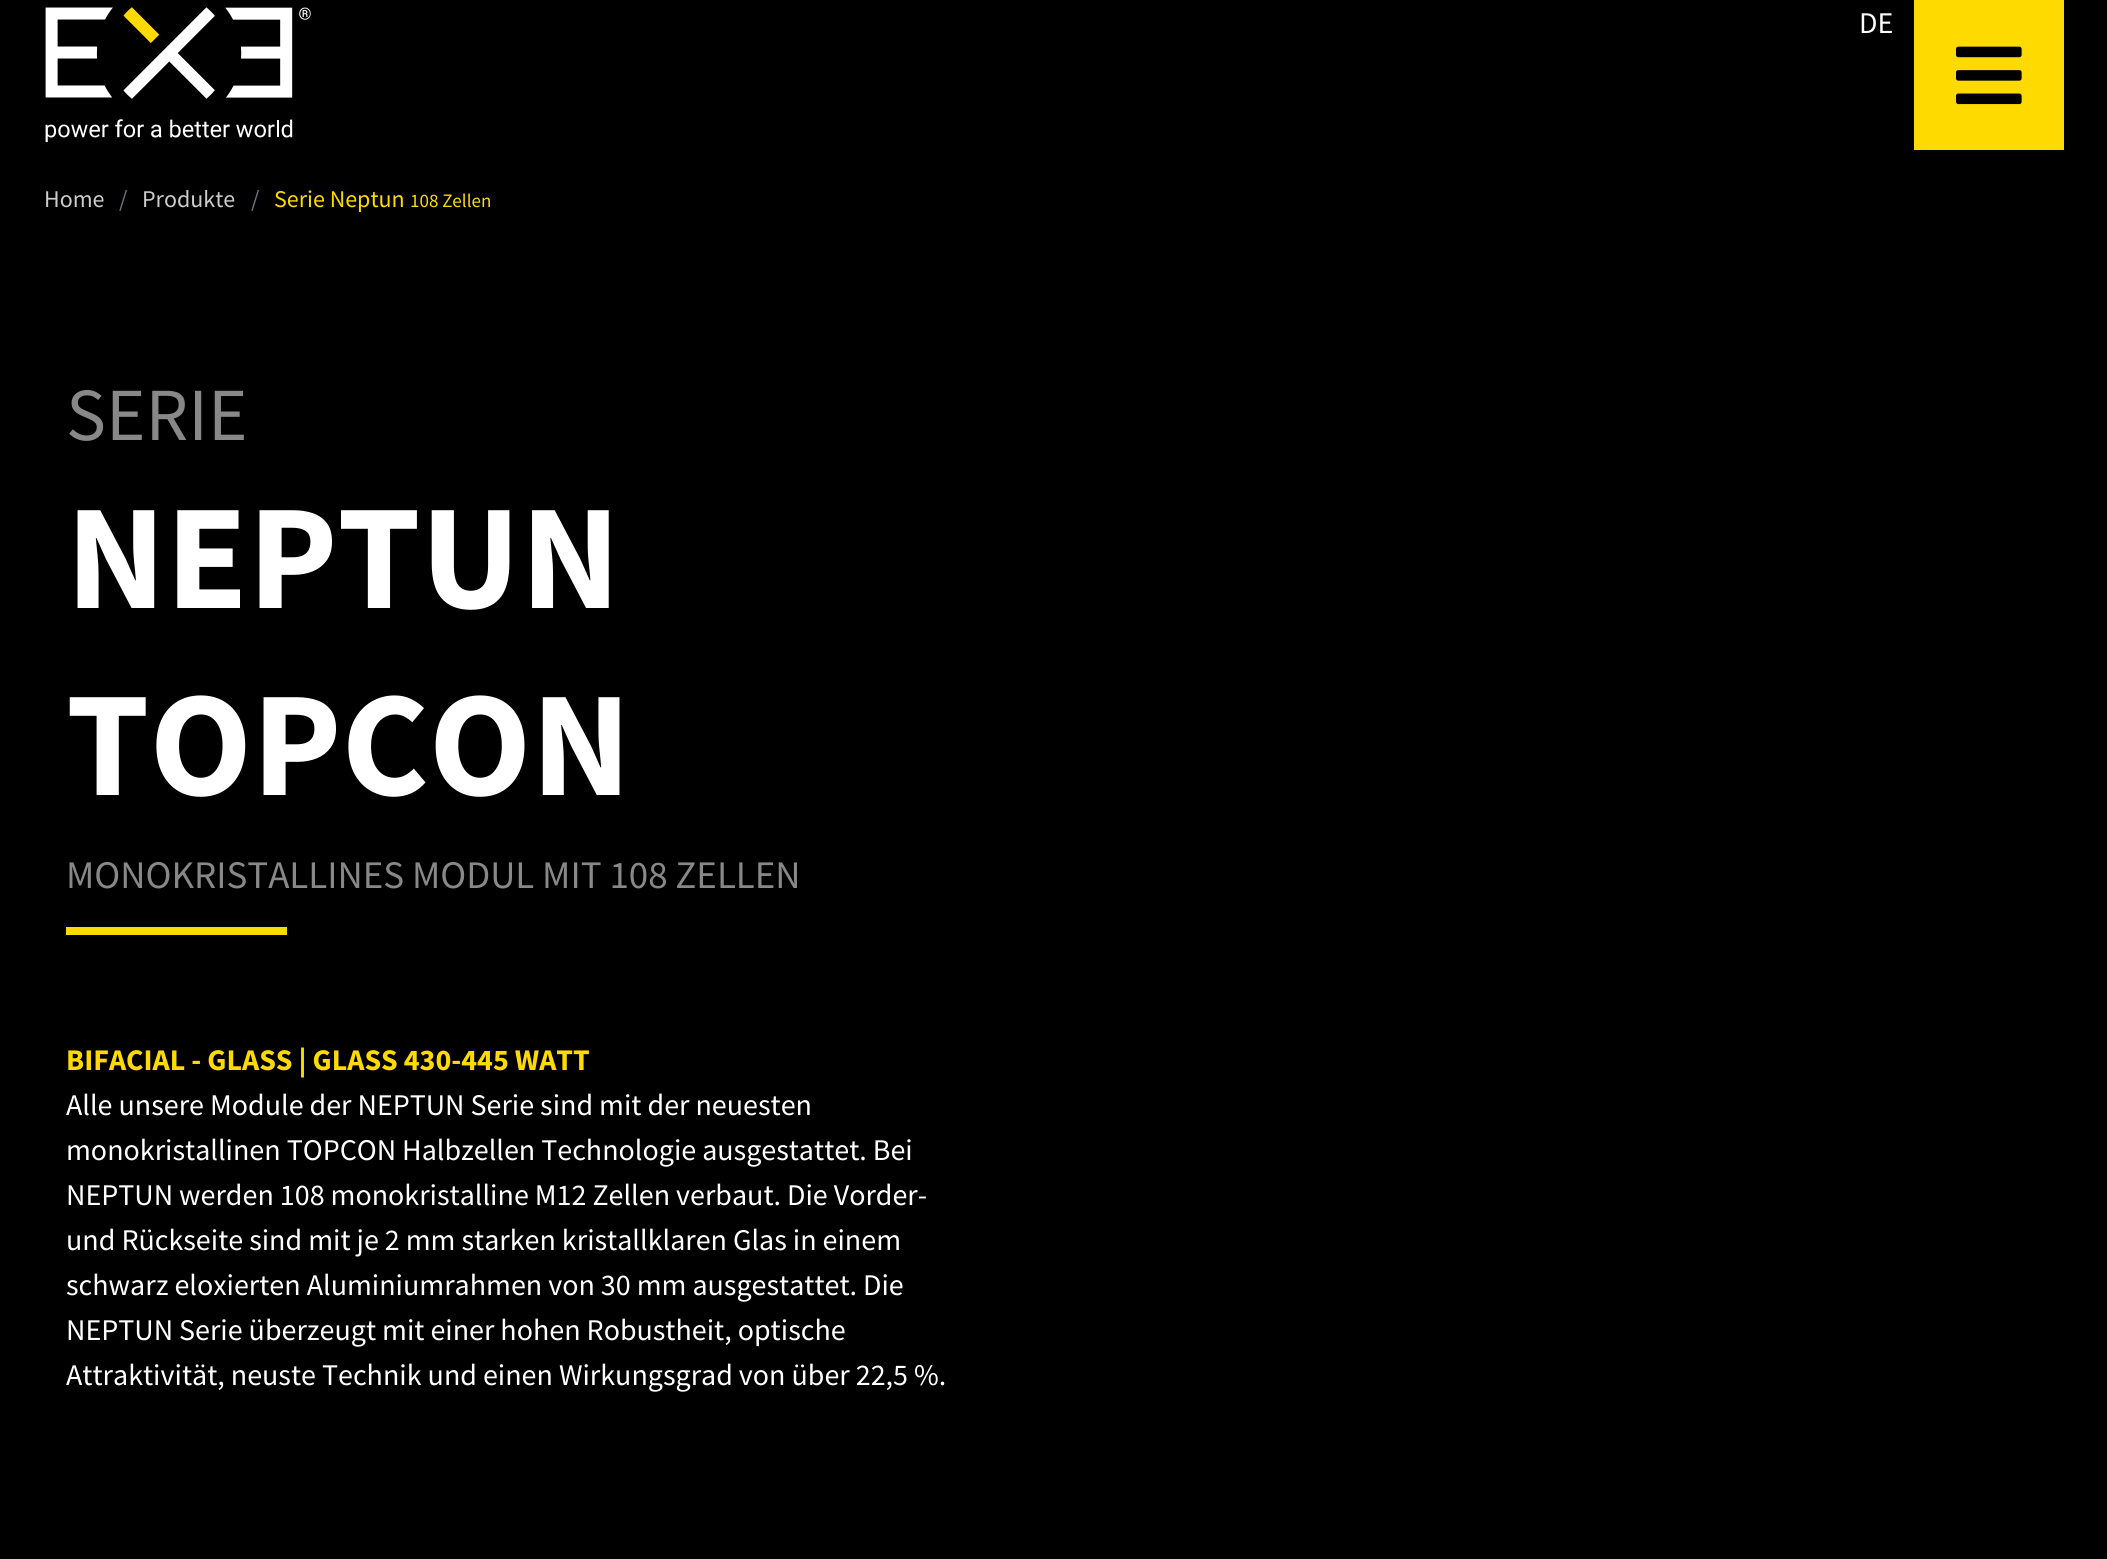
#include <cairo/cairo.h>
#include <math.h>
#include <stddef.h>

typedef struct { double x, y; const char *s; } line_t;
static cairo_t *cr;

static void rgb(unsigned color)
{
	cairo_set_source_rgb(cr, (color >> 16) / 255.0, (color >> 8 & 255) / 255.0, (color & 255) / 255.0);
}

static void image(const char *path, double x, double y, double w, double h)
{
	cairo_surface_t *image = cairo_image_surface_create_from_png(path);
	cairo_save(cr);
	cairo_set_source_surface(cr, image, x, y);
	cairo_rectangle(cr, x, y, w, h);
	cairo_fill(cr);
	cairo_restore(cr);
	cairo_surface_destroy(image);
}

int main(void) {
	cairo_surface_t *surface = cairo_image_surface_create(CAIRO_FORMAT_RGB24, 2107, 1559);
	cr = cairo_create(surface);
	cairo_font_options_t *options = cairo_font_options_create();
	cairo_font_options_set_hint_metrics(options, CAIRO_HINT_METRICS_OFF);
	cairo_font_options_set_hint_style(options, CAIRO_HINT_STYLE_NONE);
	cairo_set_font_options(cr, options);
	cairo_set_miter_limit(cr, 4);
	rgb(0x000000);
	cairo_paint(cr);
	image("img/1.png", 45, 7, 266, 135);
	rgb(0xffda00);
	cairo_rectangle(cr, 1914, 0, 150, 150);
	cairo_fill(cr);
	image("img/2.png", 1956, 46, 66, 59);
	cairo_rectangle(cr, 66, 927, 221, 8);
	cairo_fill(cr);
	cairo_select_font_face(cr, "Source Sans Pro", CAIRO_FONT_SLANT_NORMAL, CAIRO_FONT_WEIGHT_NORMAL);
	cairo_set_font_size(cr, 30);
	rgb(0xffffff);
	cairo_move_to(cr, 1859, 33);
	cairo_show_text(cr, "DE");
	cairo_set_font_size(cr, 24);
	rgb(0xcccccc);
	cairo_move_to(cr, 44, 207);
	cairo_show_text(cr, "Home");
	rgb(0x6c757d);
	cairo_move_to(cr, 119, 207);
	cairo_show_text(cr, "/");
	rgb(0xcccccc);
	cairo_move_to(cr, 142, 207);
	cairo_show_text(cr, "Produkte");
	rgb(0x6c757d);
	cairo_move_to(cr, 251, 207);
	cairo_show_text(cr, "/");
	rgb(0xffda00);
	cairo_move_to(cr, 274, 207);
	cairo_show_text(cr, "Serie Neptun");
	cairo_set_font_size(cr, 19);
	cairo_move_to(cr, 410, 207);
	cairo_show_text(cr, "108 Zellen");
	cairo_set_font_size(cr, 75);
	rgb(0x888888);
	cairo_move_to(cr, 66, 440);
	cairo_show_text(cr, "SERIE");
	cairo_select_font_face(cr, "Source Sans Pro", CAIRO_FONT_SLANT_NORMAL, CAIRO_FONT_WEIGHT_BOLD);
	cairo_set_font_size(cr, 150);
	rgb(0xffffff);
	cairo_move_to(cr, 66, 608);
	cairo_show_text(cr, "NEPTUN");
	cairo_move_to(cr, 66, 795);
	cairo_show_text(cr, "TOPCON");
	cairo_select_font_face(cr, "Source Sans Pro", CAIRO_FONT_SLANT_NORMAL, CAIRO_FONT_WEIGHT_NORMAL);
	cairo_set_font_size(cr, 39);
	rgb(0x888888);
	cairo_move_to(cr, 66, 888);
	cairo_show_text(cr, "MONOKRISTALLINES MODUL MIT 108 ZELLEN");
	cairo_select_font_face(cr, "Source Sans Pro", CAIRO_FONT_SLANT_NORMAL, CAIRO_FONT_WEIGHT_BOLD);
	cairo_set_font_size(cr, 30);
	rgb(0xffda00);
	cairo_move_to(cr, 66, 1070);
	cairo_show_text(cr, "BIFACIAL - GLASS | GLASS 430-445 WATT");
	cairo_select_font_face(cr, "Source Sans Pro", CAIRO_FONT_SLANT_NORMAL, CAIRO_FONT_WEIGHT_NORMAL);
	rgb(0xffffff);
	{
		static const line_t items[] = {
			{66, 1115, "Alle unsere Module der NEPTUN Serie sind mit der neuesten"},
			{66, 1160, "monokristallinen TOPCON Halbzellen Technologie ausgestattet. Bei"},
			{66, 1205, "NEPTUN werden 108 monokristalline M12 Zellen verbaut. Die Vorder-"},
			{66, 1250, "und Rückseite sind mit je 2 mm starken kristallklaren Glas in einem"},
			{66, 1295, "schwarz eloxierten Aluminiumrahmen von 30 mm ausgestattet. Die"},
			{66, 1340, "NEPTUN Serie überzeugt mit einer hohen Robustheit, optische"},
			{66, 1385, "Attraktivität, neuste Technik und einen Wirkungsgrad von über 22,5 %."},
		};
		for (size_t i = 0; i < sizeof items / sizeof *items; i++) {
			cairo_move_to(cr, items[i].x, items[i].y);
			cairo_show_text(cr, items[i].s);
		}
	}
	cairo_surface_write_to_png(surface, "page.png");
	cairo_font_options_destroy(options);
	cairo_destroy(cr);
	cairo_surface_destroy(surface);
	return 0;
}
